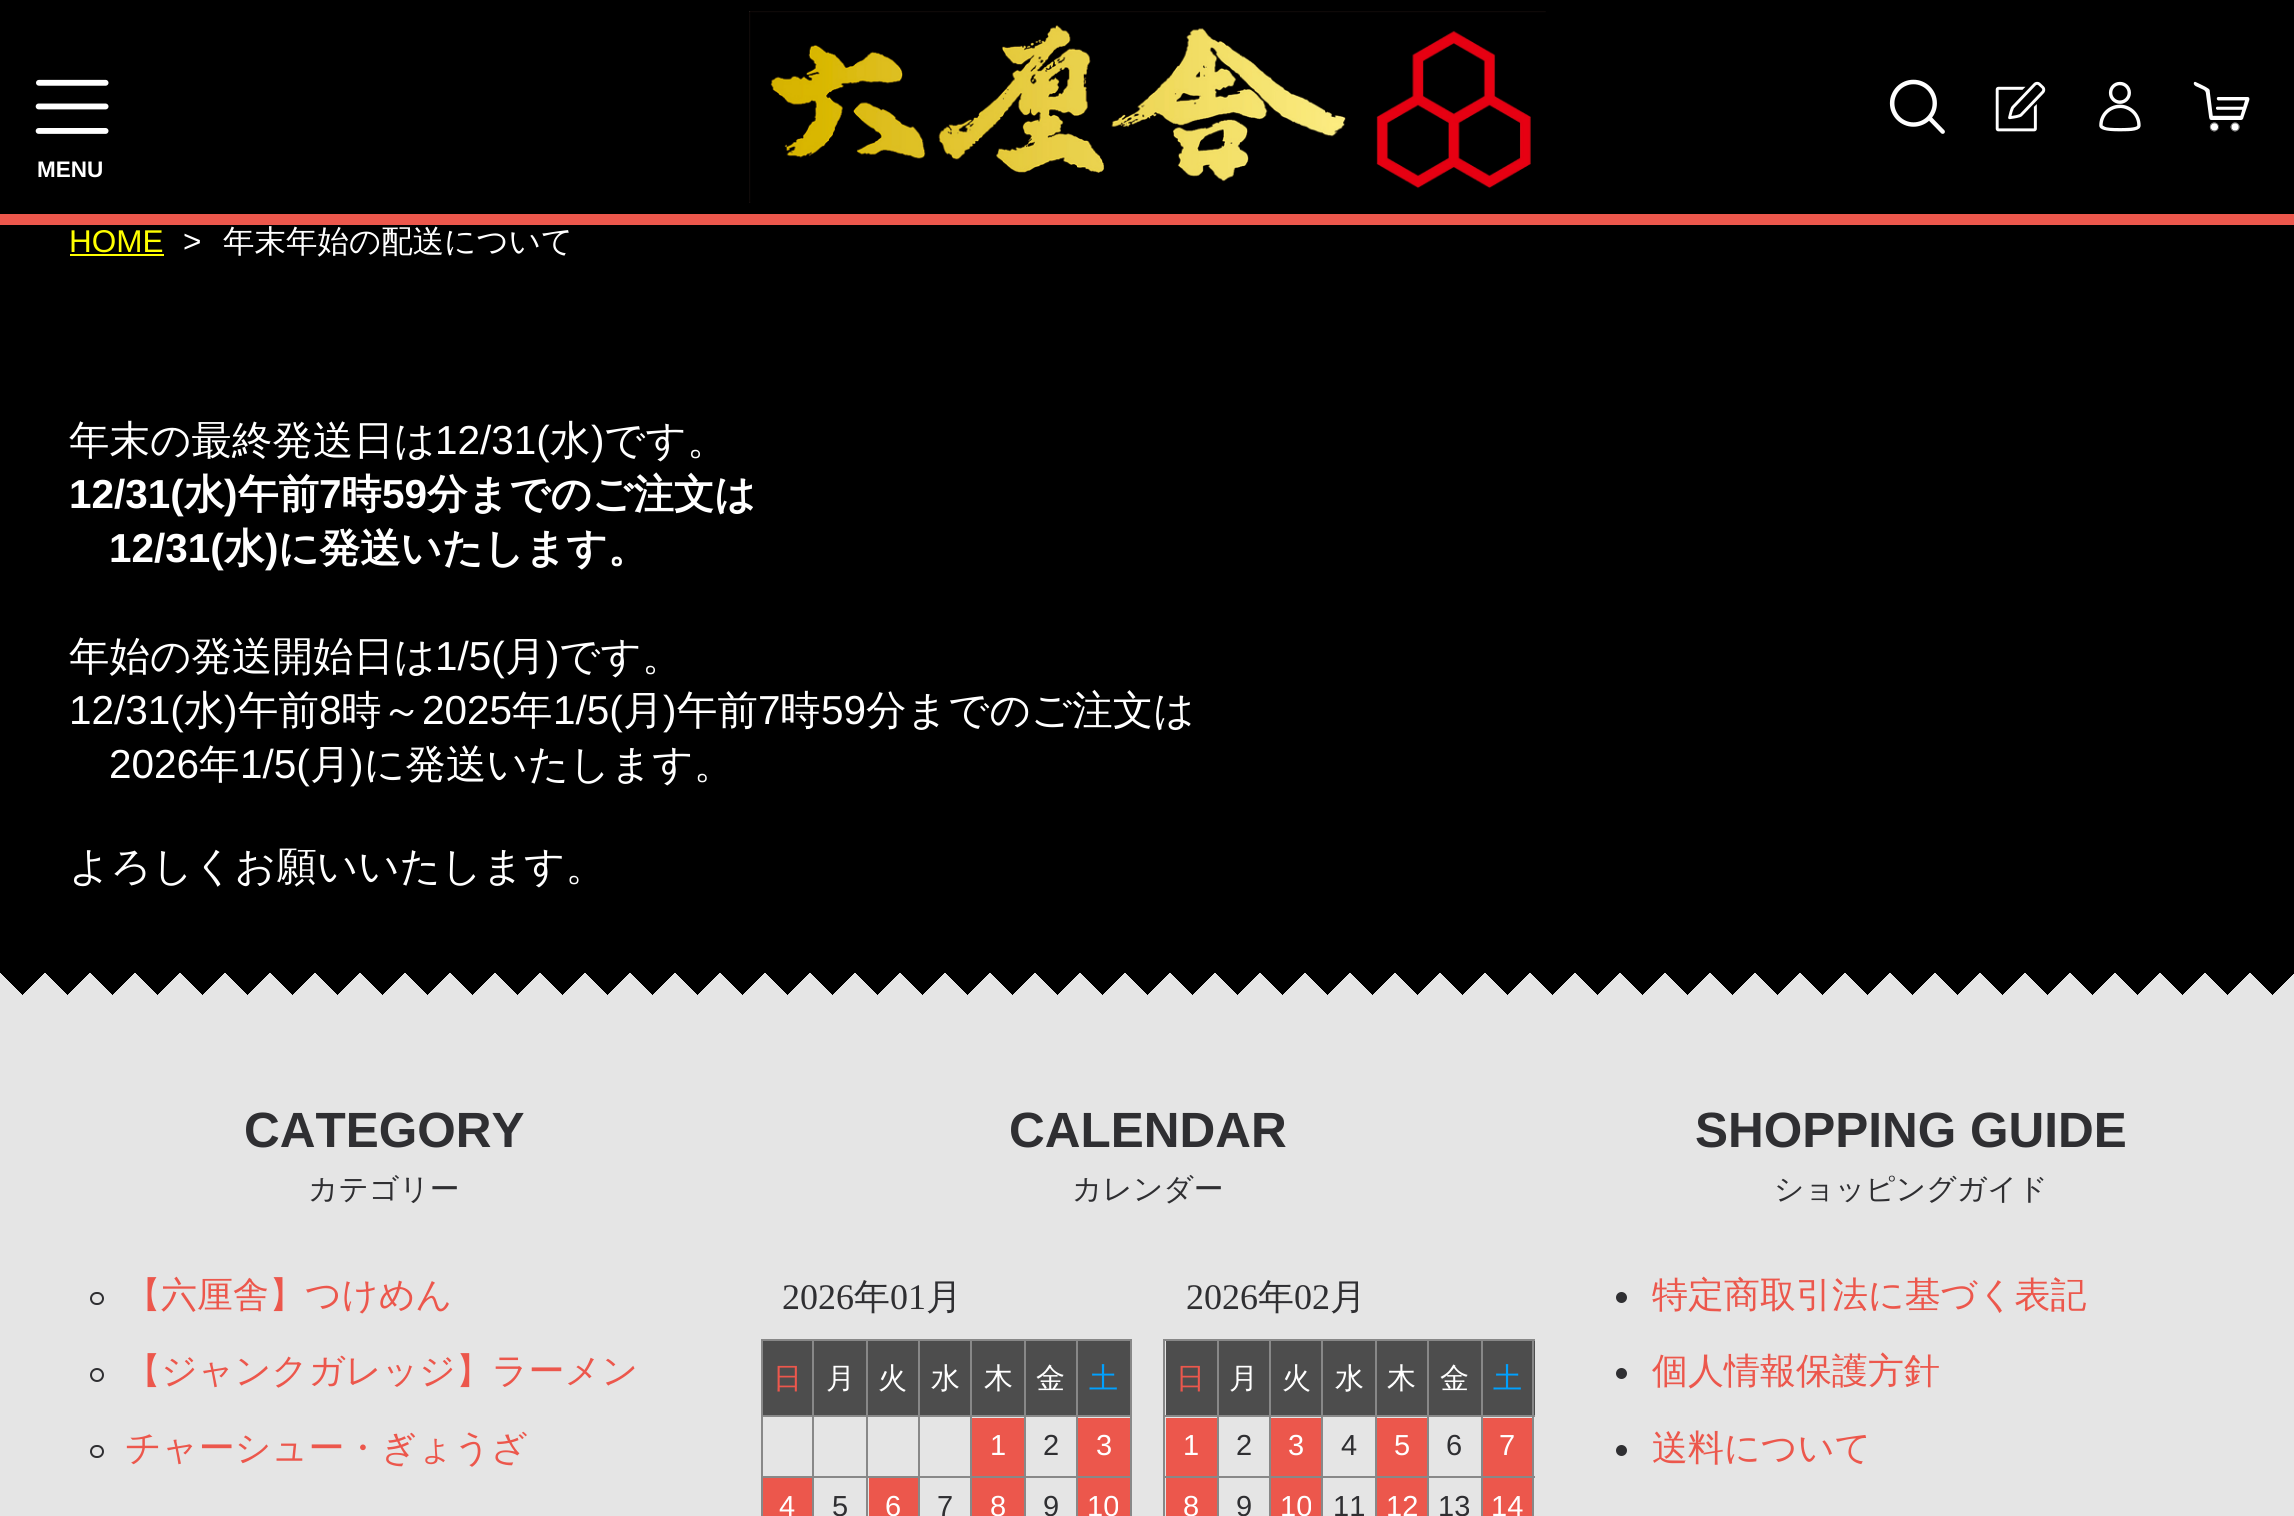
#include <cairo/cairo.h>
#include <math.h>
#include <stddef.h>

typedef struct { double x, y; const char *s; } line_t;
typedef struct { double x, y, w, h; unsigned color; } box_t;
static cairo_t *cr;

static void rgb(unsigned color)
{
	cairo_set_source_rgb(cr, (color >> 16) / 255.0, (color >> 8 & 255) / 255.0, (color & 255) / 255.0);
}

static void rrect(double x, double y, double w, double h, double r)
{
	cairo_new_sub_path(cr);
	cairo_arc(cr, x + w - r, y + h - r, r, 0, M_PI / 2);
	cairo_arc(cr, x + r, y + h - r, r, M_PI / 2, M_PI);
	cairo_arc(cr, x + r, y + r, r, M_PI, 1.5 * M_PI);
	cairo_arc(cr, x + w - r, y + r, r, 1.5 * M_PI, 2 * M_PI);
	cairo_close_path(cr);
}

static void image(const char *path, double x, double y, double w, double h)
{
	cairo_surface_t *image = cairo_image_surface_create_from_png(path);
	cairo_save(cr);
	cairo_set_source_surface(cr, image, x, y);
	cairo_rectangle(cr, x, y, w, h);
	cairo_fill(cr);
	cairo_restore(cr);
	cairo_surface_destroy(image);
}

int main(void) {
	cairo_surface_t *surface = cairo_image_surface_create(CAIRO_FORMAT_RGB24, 2294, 1516);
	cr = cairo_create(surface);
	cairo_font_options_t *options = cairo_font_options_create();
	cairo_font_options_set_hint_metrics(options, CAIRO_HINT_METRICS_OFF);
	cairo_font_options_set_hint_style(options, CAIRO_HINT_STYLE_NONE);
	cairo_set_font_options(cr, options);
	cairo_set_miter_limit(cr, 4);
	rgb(0x000000);
	cairo_paint(cr);
	rgb(0xec574c);
	cairo_rectangle(cr, 0, 214, 2294, 11);
	cairo_fill(cr);
	image("img/1.png", 749, 11, 797, 192);
	image("img/2.png", 1889, 79, 56, 55);
	image("img/3.png", 1995, 81, 51, 51);
	image("img/4.png", 2099, 81, 42, 51);
	image("img/5.png", 2193, 81, 57, 51);
	image("img/6.png", 35, 79, 74, 55);
	rgb(0xffff00);
	cairo_rectangle(cr, 70, 254, 94, 2);
	cairo_fill(cr);
	rgb(0xe5e5e5);
	cairo_rectangle(cr, 0, 1004, 2294, 512);
	cairo_fill(cr);
	image("img/7.png", 23, 973, 2271, 31);
	image("img/8.png", 0, 973, 2272, 31);
	rrect(91, 1293, 12, 11, 5.5);
	rgb(0x2f2f32);
	cairo_stroke(cr);
	cairo_arc(cr, 97, 1375, 6, 0, 2 * M_PI);
	cairo_stroke(cr);
	rrect(91, 1446, 12, 11, 5.5);
	cairo_stroke(cr);
	{
		static const box_t items[] = {
			{763, 1341, 103, 74, 0x4d4d4d},
			{1076, 1339, 56, 2, 0x888888},
			{1076, 1415, 56, 2, 0x888888},
			{1076, 1476, 56, 2, 0x888888},
			{1076, 1476, 2, 40, 0x888888},
			{1024, 1476, 54, 2, 0x888888},
			{1076, 1415, 2, 63, 0x888888},
			{1024, 1415, 54, 2, 0x888888},
			{1076, 1339, 2, 79, 0x888888},
			{1024, 1339, 54, 2, 0x888888},
			{1024, 1476, 2, 40, 0x888888},
			{970, 1476, 56, 2, 0x888888},
			{1024, 1415, 2, 63, 0x888888},
			{970, 1415, 56, 2, 0x888888},
			{1024, 1339, 2, 79, 0x888888},
			{970, 1339, 56, 2, 0x888888},
			{970, 1476, 2, 40, 0x888888},
			{918, 1476, 54, 2, 0x888888},
			{970, 1415, 2, 63, 0x888888},
			{918, 1415, 54, 2, 0x888888},
			{970, 1339, 2, 79, 0x888888},
			{918, 1339, 54, 2, 0x888888},
			{918, 1476, 2, 40, 0x888888},
			{866, 1476, 54, 2, 0x888888},
			{918, 1415, 2, 63, 0x888888},
			{866, 1415, 54, 2, 0x888888},
			{918, 1339, 2, 79, 0x888888},
			{866, 1339, 54, 2, 0x888888},
			{866, 1476, 2, 40, 0x888888},
			{812, 1476, 57, 2, 0x888888},
			{866, 1415, 2, 63, 0x888888},
			{812, 1415, 57, 2, 0x888888},
			{866, 1339, 2, 79, 0x888888},
			{812, 1339, 57, 2, 0x888888},
			{812, 1476, 2, 40, 0x888888},
			{761, 1476, 54, 2, 0x888888},
			{812, 1415, 2, 63, 0x888888},
			{761, 1415, 54, 2, 0x888888},
			{812, 1339, 2, 79, 0x888888},
			{761, 1339, 54, 2, 0x888888},
			{761, 1476, 2, 40, 0x888888},
			{761, 1415, 2, 63, 0x888888},
			{761, 1339, 2, 79, 0x888888},
			{868, 1341, 50, 74, 0x4d4d4d},
			{920, 1341, 50, 74, 0x4d4d4d},
			{972, 1341, 52, 74, 0x4d4d4d},
			{1026, 1341, 50, 74, 0x4d4d4d},
			{1078, 1341, 52, 74, 0x4d4d4d},
			{1130, 1476, 2, 40, 0x888888},
			{1130, 1415, 2, 63, 0x888888},
			{1130, 1339, 2, 79, 0x888888},
			{972, 1418, 52, 58, 0xec574c},
			{1078, 1418, 52, 58, 0xec574c},
			{763, 1478, 49, 38, 0xec574c},
			{869, 1478, 49, 38, 0xec574c},
			{972, 1478, 52, 38, 0xec574c},
			{1078, 1478, 52, 38, 0xec574c},
			{1166, 1341, 51, 74, 0x4d4d4d},
			{1481, 1339, 54, 2, 0x888888},
			{1481, 1415, 54, 2, 0x888888},
			{1481, 1476, 54, 2, 0x888888},
			{1481, 1476, 2, 40, 0x888888},
			{1427, 1476, 56, 2, 0x888888},
			{1481, 1415, 2, 63, 0x888888},
			{1427, 1415, 56, 2, 0x888888},
			{1481, 1339, 2, 79, 0x888888},
			{1427, 1339, 56, 2, 0x888888},
			{1427, 1476, 2, 40, 0x888888},
			{1375, 1476, 54, 2, 0x888888},
			{1427, 1415, 2, 63, 0x888888},
			{1375, 1415, 54, 2, 0x888888},
			{1427, 1339, 2, 79, 0x888888},
			{1375, 1339, 54, 2, 0x888888},
			{1375, 1476, 2, 40, 0x888888},
			{1321, 1476, 56, 2, 0x888888},
			{1375, 1415, 2, 63, 0x888888},
			{1321, 1415, 56, 2, 0x888888},
			{1375, 1339, 2, 79, 0x888888},
			{1321, 1339, 56, 2, 0x888888},
			{1321, 1476, 2, 40, 0x888888},
			{1269, 1476, 54, 2, 0x888888},
			{1321, 1415, 2, 63, 0x888888},
			{1269, 1415, 54, 2, 0x888888},
			{1321, 1339, 2, 79, 0x888888},
			{1269, 1339, 54, 2, 0x888888},
			{1269, 1476, 2, 40, 0x888888},
			{1217, 1476, 54, 2, 0x888888},
			{1269, 1415, 2, 63, 0x888888},
			{1217, 1415, 54, 2, 0x888888},
			{1269, 1339, 2, 79, 0x888888},
			{1217, 1339, 54, 2, 0x888888},
			{1217, 1476, 2, 40, 0x888888},
			{1163, 1476, 57, 2, 0x888888},
			{1217, 1415, 2, 63, 0x888888},
			{1163, 1415, 57, 2, 0x888888},
			{1217, 1339, 2, 79, 0x888888},
			{1163, 1339, 57, 2, 0x888888},
			{1163, 1476, 2, 40, 0x888888},
			{1163, 1415, 2, 63, 0x888888},
			{1163, 1339, 2, 79, 0x888888},
			{1219, 1341, 50, 74, 0x4d4d4d},
			{1271, 1341, 50, 74, 0x4d4d4d},
			{1323, 1341, 52, 74, 0x4d4d4d},
			{1377, 1341, 50, 74, 0x4d4d4d},
			{1429, 1341, 52, 74, 0x4d4d4d},
			{1483, 1341, 52, 74, 0x4d4d4d},
			{1532, 1476, 2, 40, 0x888888},
			{1532, 1415, 2, 63, 0x888888},
			{1532, 1339, 2, 79, 0x888888},
			{1166, 1418, 51, 58, 0xec574c},
			{1271, 1418, 50, 58, 0xec574c},
			{1377, 1418, 50, 58, 0xec574c},
			{1483, 1418, 49, 58, 0xec574c},
			{1166, 1478, 51, 38, 0xec574c},
			{1271, 1478, 50, 38, 0xec574c},
			{1377, 1478, 50, 38, 0xec574c},
			{1483, 1478, 49, 38, 0xec574c},
		};
		for (size_t i = 0; i < sizeof items / sizeof *items; i++) {
			rgb(items[i].color);
			cairo_rectangle(cr, items[i].x, items[i].y, items[i].w, items[i].h);
			cairo_fill(cr);
		}
	}
	rgb(0x2f2f32);
	cairo_arc(cr, 1621.5, 1297.5, 5.5, 0, 2 * M_PI);
	cairo_fill(cr);
	cairo_arc(cr, 1621.5, 1373.5, 5.5, 0, 2 * M_PI);
	cairo_fill(cr);
	cairo_arc(cr, 1621.5, 1450.5, 5.5, 0, 2 * M_PI);
	cairo_fill(cr);
	cairo_select_font_face(cr, "Liberation Sans", CAIRO_FONT_SLANT_NORMAL, CAIRO_FONT_WEIGHT_BOLD);
	cairo_set_font_size(cr, 22.5);
	rgb(0xffffff);
	cairo_move_to(cr, 37, 177);
	cairo_show_text(cr, "MENU");
	cairo_select_font_face(cr, "Liberation Sans", CAIRO_FONT_SLANT_NORMAL, CAIRO_FONT_WEIGHT_NORMAL);
	cairo_set_font_size(cr, 31.5);
	rgb(0xffff00);
	cairo_move_to(cr, 69, 252);
	cairo_show_text(cr, "HOME");
	rgb(0xffffff);
	cairo_move_to(cr, 183, 252);
	cairo_show_text(cr, ">");
	cairo_select_font_face(cr, "WenQuanYi Zen Hei Medium", CAIRO_FONT_SLANT_NORMAL, CAIRO_FONT_WEIGHT_NORMAL);
	cairo_move_to(cr, 223, 252);
	cairo_show_text(cr, "年末年始の配送について");
	cairo_set_font_size(cr, 40.5);
	cairo_move_to(cr, 69, 454);
	cairo_show_text(cr, "年末の最終発送日は");
	cairo_select_font_face(cr, "Liberation Sans", CAIRO_FONT_SLANT_NORMAL, CAIRO_FONT_WEIGHT_NORMAL);
	cairo_move_to(cr, 435, 454);
	cairo_show_text(cr, "12/31(");
	cairo_select_font_face(cr, "WenQuanYi Zen Hei Medium", CAIRO_FONT_SLANT_NORMAL, CAIRO_FONT_WEIGHT_NORMAL);
	cairo_move_to(cr, 550, 454);
	cairo_show_text(cr, "水");
	cairo_select_font_face(cr, "Liberation Sans", CAIRO_FONT_SLANT_NORMAL, CAIRO_FONT_WEIGHT_NORMAL);
	cairo_move_to(cr, 591, 454);
	cairo_show_text(cr, ")");
	cairo_select_font_face(cr, "WenQuanYi Zen Hei Medium", CAIRO_FONT_SLANT_NORMAL, CAIRO_FONT_WEIGHT_NORMAL);
	cairo_move_to(cr, 604, 454);
	cairo_show_text(cr, "です。");
	cairo_select_font_face(cr, "Liberation Sans", CAIRO_FONT_SLANT_NORMAL, CAIRO_FONT_WEIGHT_BOLD);
	cairo_move_to(cr, 69, 508);
	cairo_show_text(cr, "12/31(");
	cairo_select_font_face(cr, "WenQuanYi Zen Hei", CAIRO_FONT_SLANT_NORMAL, CAIRO_FONT_WEIGHT_BOLD);
	cairo_move_to(cr, 184, 508);
	cairo_show_text(cr, "水");
	cairo_select_font_face(cr, "Liberation Sans", CAIRO_FONT_SLANT_NORMAL, CAIRO_FONT_WEIGHT_BOLD);
	cairo_move_to(cr, 224, 508);
	cairo_show_text(cr, ")");
	cairo_select_font_face(cr, "WenQuanYi Zen Hei", CAIRO_FONT_SLANT_NORMAL, CAIRO_FONT_WEIGHT_BOLD);
	cairo_move_to(cr, 238, 508);
	cairo_show_text(cr, "午前");
	cairo_select_font_face(cr, "Liberation Sans", CAIRO_FONT_SLANT_NORMAL, CAIRO_FONT_WEIGHT_BOLD);
	cairo_move_to(cr, 319, 508);
	cairo_show_text(cr, "7");
	cairo_select_font_face(cr, "WenQuanYi Zen Hei", CAIRO_FONT_SLANT_NORMAL, CAIRO_FONT_WEIGHT_BOLD);
	cairo_move_to(cr, 341, 508);
	cairo_show_text(cr, "時");
	cairo_select_font_face(cr, "Liberation Sans", CAIRO_FONT_SLANT_NORMAL, CAIRO_FONT_WEIGHT_BOLD);
	cairo_move_to(cr, 382, 508);
	cairo_show_text(cr, "59");
	cairo_select_font_face(cr, "WenQuanYi Zen Hei", CAIRO_FONT_SLANT_NORMAL, CAIRO_FONT_WEIGHT_BOLD);
	cairo_move_to(cr, 427, 508);
	cairo_show_text(cr, "分までのご注文は");
	cairo_select_font_face(cr, "Liberation Sans", CAIRO_FONT_SLANT_NORMAL, CAIRO_FONT_WEIGHT_BOLD);
	cairo_move_to(cr, 109, 562);
	cairo_show_text(cr, "12/31(");
	cairo_select_font_face(cr, "WenQuanYi Zen Hei", CAIRO_FONT_SLANT_NORMAL, CAIRO_FONT_WEIGHT_BOLD);
	cairo_move_to(cr, 224, 562);
	cairo_show_text(cr, "水");
	cairo_select_font_face(cr, "Liberation Sans", CAIRO_FONT_SLANT_NORMAL, CAIRO_FONT_WEIGHT_BOLD);
	cairo_move_to(cr, 265, 562);
	cairo_show_text(cr, ")");
	cairo_select_font_face(cr, "WenQuanYi Zen Hei", CAIRO_FONT_SLANT_NORMAL, CAIRO_FONT_WEIGHT_BOLD);
	cairo_move_to(cr, 278, 562);
	cairo_show_text(cr, "に発送いたします。");
	cairo_select_font_face(cr, "WenQuanYi Zen Hei Medium", CAIRO_FONT_SLANT_NORMAL, CAIRO_FONT_WEIGHT_NORMAL);
	cairo_move_to(cr, 69, 670);
	cairo_show_text(cr, "年始の発送開始日は");
	cairo_select_font_face(cr, "Liberation Sans", CAIRO_FONT_SLANT_NORMAL, CAIRO_FONT_WEIGHT_NORMAL);
	cairo_move_to(cr, 435, 670);
	cairo_show_text(cr, "1/5(");
	cairo_select_font_face(cr, "WenQuanYi Zen Hei Medium", CAIRO_FONT_SLANT_NORMAL, CAIRO_FONT_WEIGHT_NORMAL);
	cairo_move_to(cr, 505, 670);
	cairo_show_text(cr, "月");
	cairo_select_font_face(cr, "Liberation Sans", CAIRO_FONT_SLANT_NORMAL, CAIRO_FONT_WEIGHT_NORMAL);
	cairo_move_to(cr, 546, 670);
	cairo_show_text(cr, ")");
	cairo_select_font_face(cr, "WenQuanYi Zen Hei Medium", CAIRO_FONT_SLANT_NORMAL, CAIRO_FONT_WEIGHT_NORMAL);
	cairo_move_to(cr, 559, 670);
	cairo_show_text(cr, "です。");
	cairo_select_font_face(cr, "Liberation Sans", CAIRO_FONT_SLANT_NORMAL, CAIRO_FONT_WEIGHT_NORMAL);
	cairo_move_to(cr, 69, 724);
	cairo_show_text(cr, "12/31(");
	cairo_select_font_face(cr, "WenQuanYi Zen Hei Medium", CAIRO_FONT_SLANT_NORMAL, CAIRO_FONT_WEIGHT_NORMAL);
	cairo_move_to(cr, 184, 724);
	cairo_show_text(cr, "水");
	cairo_select_font_face(cr, "Liberation Sans", CAIRO_FONT_SLANT_NORMAL, CAIRO_FONT_WEIGHT_NORMAL);
	cairo_move_to(cr, 224, 724);
	cairo_show_text(cr, ")");
	cairo_select_font_face(cr, "WenQuanYi Zen Hei Medium", CAIRO_FONT_SLANT_NORMAL, CAIRO_FONT_WEIGHT_NORMAL);
	cairo_move_to(cr, 238, 724);
	cairo_show_text(cr, "午前");
	cairo_select_font_face(cr, "Liberation Sans", CAIRO_FONT_SLANT_NORMAL, CAIRO_FONT_WEIGHT_NORMAL);
	cairo_move_to(cr, 319, 724);
	cairo_show_text(cr, "8");
	cairo_select_font_face(cr, "WenQuanYi Zen Hei Medium", CAIRO_FONT_SLANT_NORMAL, CAIRO_FONT_WEIGHT_NORMAL);
	cairo_move_to(cr, 341, 724);
	cairo_show_text(cr, "時～");
	cairo_select_font_face(cr, "Liberation Sans", CAIRO_FONT_SLANT_NORMAL, CAIRO_FONT_WEIGHT_NORMAL);
	cairo_move_to(cr, 422, 724);
	cairo_show_text(cr, "2025");
	cairo_select_font_face(cr, "WenQuanYi Zen Hei Medium", CAIRO_FONT_SLANT_NORMAL, CAIRO_FONT_WEIGHT_NORMAL);
	cairo_move_to(cr, 512, 724);
	cairo_show_text(cr, "年");
	cairo_select_font_face(cr, "Liberation Sans", CAIRO_FONT_SLANT_NORMAL, CAIRO_FONT_WEIGHT_NORMAL);
	cairo_move_to(cr, 553, 724);
	cairo_show_text(cr, "1/5(");
	cairo_select_font_face(cr, "WenQuanYi Zen Hei Medium", CAIRO_FONT_SLANT_NORMAL, CAIRO_FONT_WEIGHT_NORMAL);
	cairo_move_to(cr, 623, 724);
	cairo_show_text(cr, "月");
	cairo_select_font_face(cr, "Liberation Sans", CAIRO_FONT_SLANT_NORMAL, CAIRO_FONT_WEIGHT_NORMAL);
	cairo_move_to(cr, 663, 724);
	cairo_show_text(cr, ")");
	cairo_select_font_face(cr, "WenQuanYi Zen Hei Medium", CAIRO_FONT_SLANT_NORMAL, CAIRO_FONT_WEIGHT_NORMAL);
	cairo_move_to(cr, 677, 724);
	cairo_show_text(cr, "午前");
	cairo_select_font_face(cr, "Liberation Sans", CAIRO_FONT_SLANT_NORMAL, CAIRO_FONT_WEIGHT_NORMAL);
	cairo_move_to(cr, 758, 724);
	cairo_show_text(cr, "7");
	cairo_select_font_face(cr, "WenQuanYi Zen Hei Medium", CAIRO_FONT_SLANT_NORMAL, CAIRO_FONT_WEIGHT_NORMAL);
	cairo_move_to(cr, 780, 724);
	cairo_show_text(cr, "時");
	cairo_select_font_face(cr, "Liberation Sans", CAIRO_FONT_SLANT_NORMAL, CAIRO_FONT_WEIGHT_NORMAL);
	cairo_move_to(cr, 821, 724);
	cairo_show_text(cr, "59");
	cairo_select_font_face(cr, "WenQuanYi Zen Hei Medium", CAIRO_FONT_SLANT_NORMAL, CAIRO_FONT_WEIGHT_NORMAL);
	cairo_move_to(cr, 866, 724);
	cairo_show_text(cr, "分までのご注文は");
	cairo_select_font_face(cr, "Liberation Sans", CAIRO_FONT_SLANT_NORMAL, CAIRO_FONT_WEIGHT_NORMAL);
	cairo_move_to(cr, 109, 778);
	cairo_show_text(cr, "2026");
	cairo_select_font_face(cr, "WenQuanYi Zen Hei Medium", CAIRO_FONT_SLANT_NORMAL, CAIRO_FONT_WEIGHT_NORMAL);
	cairo_move_to(cr, 199, 778);
	cairo_show_text(cr, "年");
	cairo_select_font_face(cr, "Liberation Sans", CAIRO_FONT_SLANT_NORMAL, CAIRO_FONT_WEIGHT_NORMAL);
	cairo_move_to(cr, 240, 778);
	cairo_show_text(cr, "1/5(");
	cairo_select_font_face(cr, "WenQuanYi Zen Hei Medium", CAIRO_FONT_SLANT_NORMAL, CAIRO_FONT_WEIGHT_NORMAL);
	cairo_move_to(cr, 310, 778);
	cairo_show_text(cr, "月");
	cairo_select_font_face(cr, "Liberation Sans", CAIRO_FONT_SLANT_NORMAL, CAIRO_FONT_WEIGHT_NORMAL);
	cairo_move_to(cr, 350, 778);
	cairo_show_text(cr, ")");
	cairo_select_font_face(cr, "WenQuanYi Zen Hei Medium", CAIRO_FONT_SLANT_NORMAL, CAIRO_FONT_WEIGHT_NORMAL);
	cairo_move_to(cr, 364, 778);
	cairo_show_text(cr, "に発送いたします。");
	cairo_move_to(cr, 69, 880);
	cairo_show_text(cr, "よろしくお願いいたします。");
	cairo_select_font_face(cr, "Liberation Sans", CAIRO_FONT_SLANT_NORMAL, CAIRO_FONT_WEIGHT_BOLD);
	cairo_set_font_size(cr, 49.5);
	rgb(0x2f2f32);
	cairo_move_to(cr, 244, 1147);
	cairo_show_text(cr, "CATEGORY");
	cairo_select_font_face(cr, "WenQuanYi Zen Hei Medium", CAIRO_FONT_SLANT_NORMAL, CAIRO_FONT_WEIGHT_NORMAL);
	cairo_set_font_size(cr, 29.75);
	cairo_move_to(cr, 308, 1199);
	cairo_show_text(cr, "カテゴリー");
	cairo_set_font_size(cr, 36);
	rgb(0xec574c);
	{
		static const line_t items[] = {
			{125, 1307, "【六厘舎】つけめん"},
			{125, 1383, "【ジャンクガレッジ】ラーメン"},
			{125, 1460, "チャーシュー・ぎょうざ"},
		};
		for (size_t i = 0; i < sizeof items / sizeof *items; i++) {
			cairo_move_to(cr, items[i].x, items[i].y);
			cairo_show_text(cr, items[i].s);
		}
	}
	cairo_select_font_face(cr, "Liberation Sans", CAIRO_FONT_SLANT_NORMAL, CAIRO_FONT_WEIGHT_BOLD);
	cairo_set_font_size(cr, 49.5);
	rgb(0x2f2f32);
	cairo_move_to(cr, 1009, 1147);
	cairo_show_text(cr, "CALENDAR");
	cairo_select_font_face(cr, "WenQuanYi Zen Hei Medium", CAIRO_FONT_SLANT_NORMAL, CAIRO_FONT_WEIGHT_NORMAL);
	cairo_set_font_size(cr, 29.75);
	cairo_move_to(cr, 1072, 1199);
	cairo_show_text(cr, "カレンダー");
	cairo_select_font_face(cr, "Liberation Serif", CAIRO_FONT_SLANT_NORMAL, CAIRO_FONT_WEIGHT_NORMAL);
	cairo_set_font_size(cr, 36);
	cairo_move_to(cr, 782, 1309);
	cairo_show_text(cr, "2026");
	cairo_select_font_face(cr, "WenQuanYi Zen Hei Medium", CAIRO_FONT_SLANT_NORMAL, CAIRO_FONT_WEIGHT_NORMAL);
	cairo_move_to(cr, 854, 1309);
	cairo_show_text(cr, "年");
	cairo_select_font_face(cr, "Liberation Serif", CAIRO_FONT_SLANT_NORMAL, CAIRO_FONT_WEIGHT_NORMAL);
	cairo_move_to(cr, 890, 1309);
	cairo_show_text(cr, "01");
	cairo_select_font_face(cr, "WenQuanYi Zen Hei Medium", CAIRO_FONT_SLANT_NORMAL, CAIRO_FONT_WEIGHT_NORMAL);
	cairo_move_to(cr, 926, 1309);
	cairo_show_text(cr, "月");
	cairo_set_font_size(cr, 29);
	rgb(0xec574c);
	cairo_move_to(cr, 773, 1388);
	cairo_show_text(cr, "日");
	rgb(0xffffff);
	{
		static const line_t items[] = {
			{826, 1388, "月"},
			{878, 1388, "火"},
			{931, 1388, "水"},
			{984, 1388, "木"},
			{1036, 1388, "金"},
		};
		for (size_t i = 0; i < sizeof items / sizeof *items; i++) {
			cairo_move_to(cr, items[i].x, items[i].y);
			cairo_show_text(cr, items[i].s);
		}
	}
	rgb(0x00a1ff);
	cairo_move_to(cr, 1089, 1388);
	cairo_show_text(cr, "土");
	cairo_select_font_face(cr, "Liberation Sans", CAIRO_FONT_SLANT_NORMAL, CAIRO_FONT_WEIGHT_NORMAL);
	rgb(0xffffff);
	cairo_move_to(cr, 990, 1455);
	cairo_show_text(cr, "1");
	rgb(0x2f2f32);
	cairo_move_to(cr, 1043, 1455);
	cairo_show_text(cr, "2");
	rgb(0xffffff);
	cairo_move_to(cr, 1096, 1455);
	cairo_show_text(cr, "3");
	cairo_move_to(cr, 779, 1516);
	cairo_show_text(cr, "4");
	rgb(0x2f2f32);
	cairo_move_to(cr, 832, 1516);
	cairo_show_text(cr, "5");
	rgb(0xffffff);
	cairo_move_to(cr, 885, 1516);
	cairo_show_text(cr, "6");
	rgb(0x2f2f32);
	cairo_move_to(cr, 937, 1516);
	cairo_show_text(cr, "7");
	rgb(0xffffff);
	cairo_move_to(cr, 990, 1516);
	cairo_show_text(cr, "8");
	rgb(0x2f2f32);
	cairo_move_to(cr, 1043, 1516);
	cairo_show_text(cr, "9");
	rgb(0xffffff);
	cairo_move_to(cr, 1087, 1516);
	cairo_show_text(cr, "10");
	cairo_select_font_face(cr, "Liberation Serif", CAIRO_FONT_SLANT_NORMAL, CAIRO_FONT_WEIGHT_NORMAL);
	cairo_set_font_size(cr, 36);
	rgb(0x2f2f32);
	cairo_move_to(cr, 1186, 1309);
	cairo_show_text(cr, "2026");
	cairo_select_font_face(cr, "WenQuanYi Zen Hei Medium", CAIRO_FONT_SLANT_NORMAL, CAIRO_FONT_WEIGHT_NORMAL);
	cairo_move_to(cr, 1258, 1309);
	cairo_show_text(cr, "年");
	cairo_select_font_face(cr, "Liberation Serif", CAIRO_FONT_SLANT_NORMAL, CAIRO_FONT_WEIGHT_NORMAL);
	cairo_move_to(cr, 1294, 1309);
	cairo_show_text(cr, "02");
	cairo_select_font_face(cr, "WenQuanYi Zen Hei Medium", CAIRO_FONT_SLANT_NORMAL, CAIRO_FONT_WEIGHT_NORMAL);
	cairo_move_to(cr, 1330, 1309);
	cairo_show_text(cr, "月");
	cairo_set_font_size(cr, 29);
	rgb(0xec574c);
	cairo_move_to(cr, 1176, 1388);
	cairo_show_text(cr, "日");
	rgb(0xffffff);
	{
		static const line_t items[] = {
			{1229, 1388, "月"},
			{1282, 1388, "火"},
			{1335, 1388, "水"},
			{1387, 1388, "木"},
			{1440, 1388, "金"},
		};
		for (size_t i = 0; i < sizeof items / sizeof *items; i++) {
			cairo_move_to(cr, items[i].x, items[i].y);
			cairo_show_text(cr, items[i].s);
		}
	}
	rgb(0x00a1ff);
	cairo_move_to(cr, 1493, 1388);
	cairo_show_text(cr, "土");
	cairo_select_font_face(cr, "Liberation Sans", CAIRO_FONT_SLANT_NORMAL, CAIRO_FONT_WEIGHT_NORMAL);
	rgb(0xffffff);
	cairo_move_to(cr, 1183, 1455);
	cairo_show_text(cr, "1");
	rgb(0x2f2f32);
	cairo_move_to(cr, 1236, 1455);
	cairo_show_text(cr, "2");
	rgb(0xffffff);
	cairo_move_to(cr, 1288, 1455);
	cairo_show_text(cr, "3");
	rgb(0x2f2f32);
	cairo_move_to(cr, 1341, 1455);
	cairo_show_text(cr, "4");
	rgb(0xffffff);
	cairo_move_to(cr, 1394, 1455);
	cairo_show_text(cr, "5");
	rgb(0x2f2f32);
	cairo_move_to(cr, 1446, 1455);
	cairo_show_text(cr, "6");
	rgb(0xffffff);
	cairo_move_to(cr, 1499, 1455);
	cairo_show_text(cr, "7");
	cairo_move_to(cr, 1183, 1516);
	cairo_show_text(cr, "8");
	rgb(0x2f2f32);
	cairo_move_to(cr, 1236, 1516);
	cairo_show_text(cr, "9");
	rgb(0xffffff);
	cairo_move_to(cr, 1280, 1516);
	cairo_show_text(cr, "10");
	rgb(0x2f2f32);
	cairo_move_to(cr, 1333, 1516);
	cairo_show_text(cr, "11");
	rgb(0xffffff);
	cairo_move_to(cr, 1386, 1516);
	cairo_show_text(cr, "12");
	rgb(0x2f2f32);
	cairo_move_to(cr, 1438, 1516);
	cairo_show_text(cr, "13");
	rgb(0xffffff);
	cairo_move_to(cr, 1491, 1516);
	cairo_show_text(cr, "14");
	cairo_select_font_face(cr, "Liberation Sans", CAIRO_FONT_SLANT_NORMAL, CAIRO_FONT_WEIGHT_BOLD);
	cairo_set_font_size(cr, 49.5);
	rgb(0x2f2f32);
	cairo_move_to(cr, 1695, 1147);
	cairo_show_text(cr, "SHOPPING GUIDE");
	cairo_select_font_face(cr, "WenQuanYi Zen Hei Medium", CAIRO_FONT_SLANT_NORMAL, CAIRO_FONT_WEIGHT_NORMAL);
	cairo_set_font_size(cr, 29.75);
	cairo_move_to(cr, 1774, 1199);
	cairo_show_text(cr, "ショッピングガイド");
	cairo_set_font_size(cr, 36);
	rgb(0xec574c);
	{
		static const line_t items[] = {
			{1652, 1307, "特定商取引法に基づく表記"},
			{1652, 1383, "個人情報保護方針"},
			{1652, 1460, "送料について"},
		};
		for (size_t i = 0; i < sizeof items / sizeof *items; i++) {
			cairo_move_to(cr, items[i].x, items[i].y);
			cairo_show_text(cr, items[i].s);
		}
	}
	cairo_surface_write_to_png(surface, "page.png");
	cairo_font_options_destroy(options);
	cairo_destroy(cr);
	cairo_surface_destroy(surface);
	return 0;
}
